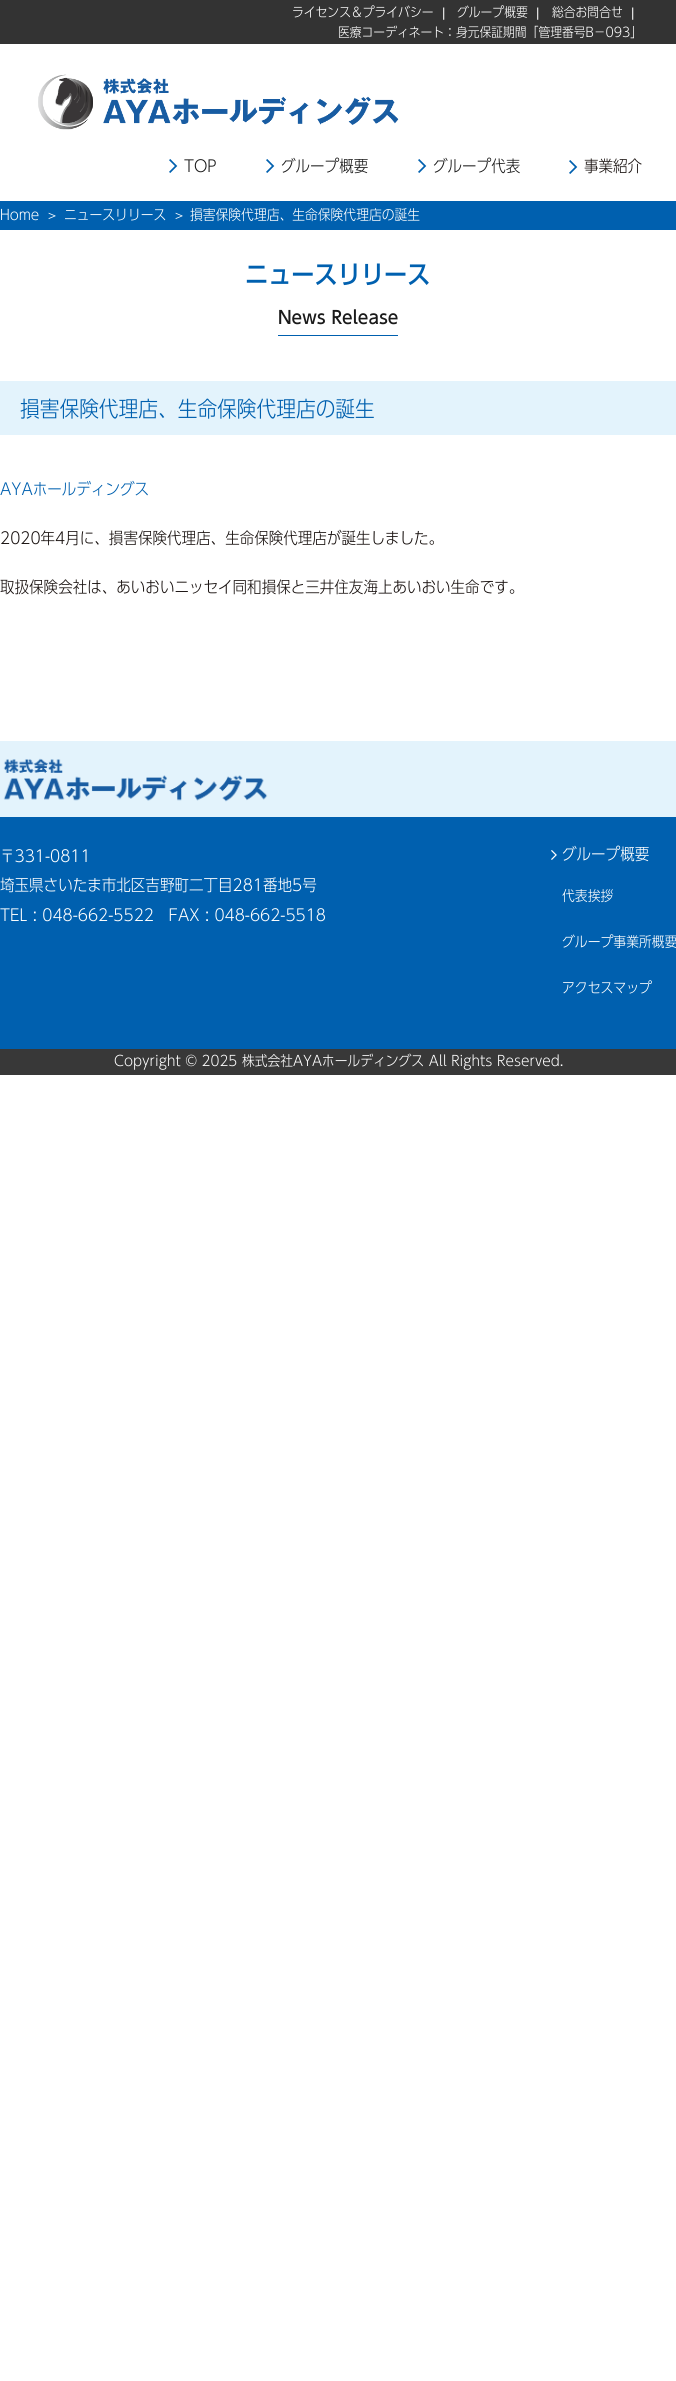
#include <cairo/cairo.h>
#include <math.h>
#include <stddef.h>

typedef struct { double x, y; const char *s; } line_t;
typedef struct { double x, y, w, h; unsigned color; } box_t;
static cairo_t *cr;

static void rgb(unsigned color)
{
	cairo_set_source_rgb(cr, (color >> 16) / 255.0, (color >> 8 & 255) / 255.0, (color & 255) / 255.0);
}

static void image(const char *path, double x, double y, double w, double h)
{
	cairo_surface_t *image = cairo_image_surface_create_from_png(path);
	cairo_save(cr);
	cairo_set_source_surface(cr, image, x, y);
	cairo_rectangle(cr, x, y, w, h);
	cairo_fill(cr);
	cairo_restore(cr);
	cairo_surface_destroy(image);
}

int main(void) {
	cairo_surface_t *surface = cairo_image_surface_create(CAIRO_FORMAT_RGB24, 676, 2381);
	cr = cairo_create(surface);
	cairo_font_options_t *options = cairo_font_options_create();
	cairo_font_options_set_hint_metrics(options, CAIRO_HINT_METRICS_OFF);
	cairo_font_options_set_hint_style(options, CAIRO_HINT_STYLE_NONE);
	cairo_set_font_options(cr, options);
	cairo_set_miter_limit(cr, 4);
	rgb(0xffffff);
	cairo_paint(cr);
	rgb(0x333333);
	cairo_rectangle(cr, 0, 0, 676, 44);
	cairo_fill(cr);
	image("img/1.png", 38, 74, 361, 56);
	image("img/2.png", 169, 159, 9, 14);
	image("img/2.png", 266, 159, 9, 14);
	image("img/2.png", 418, 159, 9, 14);
	image("img/2.png", 569, 160, 9, 14);
	{
		static const box_t items[] = {
			{0, 201, 676, 29, 0x0060af},
			{278, 335, 120, 1, 0x0060af},
			{0, 381, 676, 54, 0xe3f3fc},
			{0, 817, 676, 232, 0x0060af},
			{0, 741, 676, 76, 0xe3f3fc},
		};
		for (size_t i = 0; i < sizeof items / sizeof *items; i++) {
			rgb(items[i].color);
			cairo_rectangle(cr, items[i].x, items[i].y, items[i].w, items[i].h);
			cairo_fill(cr);
		}
	}
	image("img/3.png", 3, 758, 265, 44);
	image("img/4.png", 551, 850, 6, 10);
	rgb(0x383838);
	cairo_rectangle(cr, 0, 1049, 676, 26);
	cairo_fill(cr);
	cairo_select_font_face(cr, "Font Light", CAIRO_FONT_SLANT_NORMAL, CAIRO_FONT_WEIGHT_NORMAL);
	cairo_set_font_size(cr, 13.1);
	rgb(0xffffff);
	cairo_move_to(cr, 292, 17);
	cairo_show_text(cr, "ライセンス＆プライバシー");
	cairo_select_font_face(cr, "Liberation Sans", CAIRO_FONT_SLANT_NORMAL, CAIRO_FONT_WEIGHT_NORMAL);
	cairo_move_to(cr, 442, 17);
	cairo_show_text(cr, "|");
	cairo_select_font_face(cr, "Font Light", CAIRO_FONT_SLANT_NORMAL, CAIRO_FONT_WEIGHT_NORMAL);
	cairo_move_to(cr, 457, 17);
	cairo_show_text(cr, "グループ概要");
	cairo_select_font_face(cr, "Liberation Sans", CAIRO_FONT_SLANT_NORMAL, CAIRO_FONT_WEIGHT_NORMAL);
	cairo_move_to(cr, 536, 17);
	cairo_show_text(cr, "|");
	cairo_select_font_face(cr, "Font Light", CAIRO_FONT_SLANT_NORMAL, CAIRO_FONT_WEIGHT_NORMAL);
	cairo_move_to(cr, 552, 17);
	cairo_show_text(cr, "総合お問合せ");
	cairo_select_font_face(cr, "Liberation Sans", CAIRO_FONT_SLANT_NORMAL, CAIRO_FONT_WEIGHT_NORMAL);
	cairo_move_to(cr, 631, 17);
	cairo_show_text(cr, "|");
	cairo_select_font_face(cr, "Font Light", CAIRO_FONT_SLANT_NORMAL, CAIRO_FONT_WEIGHT_NORMAL);
	cairo_move_to(cr, 338, 37);
	cairo_show_text(cr, "医療コーディネート：身元保証期間「管理番号B−093」");
	cairo_set_font_size(cr, 16.15);
	rgb(0x1a1a1a);
	{
		static const line_t items[] = {
			{184, 172, "TOP"},
			{281, 172, "グループ概要"},
			{433, 172, "グループ代表"},
		};
		for (size_t i = 0; i < sizeof items / sizeof *items; i++) {
			cairo_move_to(cr, items[i].x, items[i].y);
			cairo_show_text(cr, items[i].s);
		}
	}
	rgb(0x1a1311);
	cairo_move_to(cr, 584, 172);
	cairo_show_text(cr, "事業紹介");
	cairo_set_font_size(cr, 14.2);
	rgb(0xffffff);
	cairo_move_to(cr, 0, 220);
	cairo_show_text(cr, "Home");
	cairo_select_font_face(cr, "WenQuanYi Zen Hei Medium", CAIRO_FONT_SLANT_NORMAL, CAIRO_FONT_WEIGHT_NORMAL);
	cairo_move_to(cr, 45, 220);
	cairo_show_text(cr, "＞");
	cairo_select_font_face(cr, "Font Light", CAIRO_FONT_SLANT_NORMAL, CAIRO_FONT_WEIGHT_NORMAL);
	cairo_move_to(cr, 64, 220);
	cairo_show_text(cr, "ニュースリリース");
	cairo_select_font_face(cr, "WenQuanYi Zen Hei Medium", CAIRO_FONT_SLANT_NORMAL, CAIRO_FONT_WEIGHT_NORMAL);
	cairo_move_to(cr, 172, 220);
	cairo_show_text(cr, "＞");
	cairo_select_font_face(cr, "Font Light", CAIRO_FONT_SLANT_NORMAL, CAIRO_FONT_WEIGHT_NORMAL);
	cairo_move_to(cr, 190, 220);
	cairo_show_text(cr, "損害保険代理店、生命保険代理店の誕生");
	cairo_select_font_face(cr, "Font Medium", CAIRO_FONT_SLANT_NORMAL, CAIRO_FONT_WEIGHT_NORMAL);
	cairo_set_font_size(cr, 25.75);
	rgb(0x0060af);
	cairo_move_to(cr, 245, 284);
	cairo_show_text(cr, "ニュースリリース");
	cairo_set_font_size(cr, 17.75);
	rgb(0x1a1a1a);
	cairo_move_to(cr, 278, 324);
	cairo_show_text(cr, "News Release");
	cairo_select_font_face(cr, "Font Light", CAIRO_FONT_SLANT_NORMAL, CAIRO_FONT_WEIGHT_NORMAL);
	cairo_set_font_size(cr, 21.9);
	rgb(0x0060af);
	cairo_move_to(cr, 20, 417);
	cairo_show_text(cr, "損害保険代理店、生命保険代理店の誕生");
	cairo_set_font_size(cr, 16.15);
	cairo_move_to(cr, 0, 495);
	cairo_show_text(cr, "AYAホールディングス");
	rgb(0x1a1311);
	cairo_move_to(cr, 0, 544);
	cairo_show_text(cr, "2020年4月に、損害保険代理店、生命保険代理店が誕生しました。");
	cairo_move_to(cr, 0, 593);
	cairo_show_text(cr, "取扱保険会社は、あいおいニッセイ同和損保と三井住友海上あいおい生命です。");
	rgb(0xffffff);
	{
		static const line_t items[] = {
			{0, 862, "〒331-0811"},
			{0, 891, "埼玉県さいたま市北区吉野町二丁目281番地5号"},
			{0, 921, "TEL : 048-662-5522　FAX : 048-662-5518"},
			{562, 860, "グループ概要"},
		};
		for (size_t i = 0; i < sizeof items / sizeof *items; i++) {
			cairo_move_to(cr, items[i].x, items[i].y);
			cairo_show_text(cr, items[i].s);
		}
	}
	cairo_set_font_size(cr, 14.25);
	{
		static const line_t items[] = {
			{562, 901, "代表挨拶"},
			{562, 947, "グループ事業所概要"},
			{562, 993, "アクセスマップ"},
		};
		for (size_t i = 0; i < sizeof items / sizeof *items; i++) {
			cairo_move_to(cr, items[i].x, items[i].y);
			cairo_show_text(cr, items[i].s);
		}
	}
	cairo_set_font_size(cr, 14.2);
	cairo_move_to(cr, 114, 1066);
	cairo_show_text(cr, "Copyright © 2025 株式会社AYAホールディングス All Rights Reserved.");
	cairo_surface_write_to_png(surface, "page.png");
	cairo_font_options_destroy(options);
	cairo_destroy(cr);
	cairo_surface_destroy(surface);
	return 0;
}
